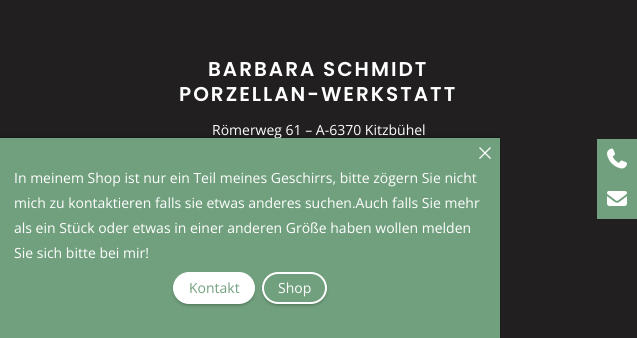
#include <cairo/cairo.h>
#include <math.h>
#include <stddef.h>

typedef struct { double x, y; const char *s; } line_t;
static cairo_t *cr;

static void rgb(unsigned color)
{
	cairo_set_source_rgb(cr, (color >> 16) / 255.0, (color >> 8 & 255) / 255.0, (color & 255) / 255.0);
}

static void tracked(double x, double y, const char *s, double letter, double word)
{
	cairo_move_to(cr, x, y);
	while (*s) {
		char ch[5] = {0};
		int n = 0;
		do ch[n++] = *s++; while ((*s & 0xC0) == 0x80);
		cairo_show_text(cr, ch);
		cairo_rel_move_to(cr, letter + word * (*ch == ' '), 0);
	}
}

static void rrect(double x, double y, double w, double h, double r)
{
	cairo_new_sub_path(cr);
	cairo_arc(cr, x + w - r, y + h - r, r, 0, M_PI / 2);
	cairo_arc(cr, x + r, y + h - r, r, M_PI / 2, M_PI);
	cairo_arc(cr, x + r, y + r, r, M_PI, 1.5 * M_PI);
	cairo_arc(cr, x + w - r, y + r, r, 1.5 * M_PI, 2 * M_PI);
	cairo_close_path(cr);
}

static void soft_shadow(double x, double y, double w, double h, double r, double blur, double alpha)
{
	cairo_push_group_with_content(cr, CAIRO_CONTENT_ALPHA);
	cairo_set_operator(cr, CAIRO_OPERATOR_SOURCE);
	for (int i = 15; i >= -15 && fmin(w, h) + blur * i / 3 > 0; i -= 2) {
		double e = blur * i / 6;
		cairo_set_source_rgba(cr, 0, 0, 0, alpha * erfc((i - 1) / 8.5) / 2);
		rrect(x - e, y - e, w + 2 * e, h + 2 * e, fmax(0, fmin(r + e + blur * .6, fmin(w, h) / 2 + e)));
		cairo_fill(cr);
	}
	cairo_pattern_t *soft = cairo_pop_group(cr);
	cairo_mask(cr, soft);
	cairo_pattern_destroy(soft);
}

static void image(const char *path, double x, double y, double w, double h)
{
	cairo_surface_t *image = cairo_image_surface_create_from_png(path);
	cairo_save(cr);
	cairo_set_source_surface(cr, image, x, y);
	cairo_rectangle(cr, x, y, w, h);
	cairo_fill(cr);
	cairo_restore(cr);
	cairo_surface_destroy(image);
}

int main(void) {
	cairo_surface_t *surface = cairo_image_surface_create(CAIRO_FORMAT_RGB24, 637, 338);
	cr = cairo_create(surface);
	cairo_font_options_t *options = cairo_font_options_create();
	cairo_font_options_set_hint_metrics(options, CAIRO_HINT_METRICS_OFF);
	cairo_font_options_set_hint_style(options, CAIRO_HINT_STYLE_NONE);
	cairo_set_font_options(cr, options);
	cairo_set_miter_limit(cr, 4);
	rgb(0x211f1f);
	cairo_paint(cr);
	rgb(0x000000);
	soft_shadow(2, 138, 496, 196, 0, 2, 0.5);
	rgb(0x71a07e);
	cairo_rectangle(cr, 597, 139, 40, 80);
	cairo_fill(cr);
	image("img/2.png", 607, 148, 20, 21);
	image("img/3.png", 607, 191, 20, 15);
	cairo_select_font_face(cr, "Poppins SemiBold", CAIRO_FONT_SLANT_NORMAL, CAIRO_FONT_WEIGHT_NORMAL);
	cairo_set_font_size(cr, 20);
	rgb(0xffffff);
	tracked(208, 76, "BARBARA SCHMIDT", 2, 0);
	tracked(179, 101, "PORZELLAN-WERKSTATT", 2, 0);
	cairo_select_font_face(cr, "Open Sans", CAIRO_FONT_SLANT_NORMAL, CAIRO_FONT_WEIGHT_NORMAL);
	cairo_set_font_size(cr, 14);
	cairo_move_to(cr, 212, 135);
	cairo_show_text(cr, "Römerweg 61 – A-6370 Kitzbühel");
	rgb(0x71a07e);
	cairo_rectangle(cr, 0, 138, 500, 200);
	cairo_fill(cr);
	image("img/1.png", 479, 147, 12, 12);
	rgb(0xffffff);
	{
		static const line_t items[] = {
			{14, 183, "In meinem Shop ist nur ein Teil meines Geschirrs, bitte zögern Sie nicht"},
			{14, 208, "mich zu kontaktieren falls sie etwas anderes suchen.Auch falls Sie mehr"},
			{14, 233, "als ein Stück oder etwas in einer anderen Größe haben wollen melden"},
			{14, 258, "Sie sich bitte bei mir!"},
		};
		for (size_t i = 0; i < sizeof items / sizeof *items; i++) {
			cairo_move_to(cr, items[i].x, items[i].y);
			cairo_show_text(cr, items[i].s);
		}
	}
	rgb(0x000000);
	soft_shadow(175, 276, 78, 28, 14, 2, 0.5);
	rgb(0xffffff);
	rrect(174, 273, 80, 30, 15);
	cairo_fill_preserve(cr);
	cairo_stroke(cr);
	rgb(0x71a07e);
	cairo_move_to(cr, 189, 293);
	cairo_show_text(cr, "Kontakt");
	rgb(0x000000);
	soft_shadow(264, 276, 61, 28, 14, 2, 0.5);
	rgb(0x71a07e);
	rrect(263, 273, 63, 30, 15);
	cairo_fill_preserve(cr);
	rgb(0xffffff);
	cairo_stroke(cr);
	cairo_move_to(cr, 278, 293);
	cairo_show_text(cr, "Shop");
	cairo_surface_write_to_png(surface, "page.png");
	cairo_font_options_destroy(options);
	cairo_destroy(cr);
	cairo_surface_destroy(surface);
	return 0;
}
